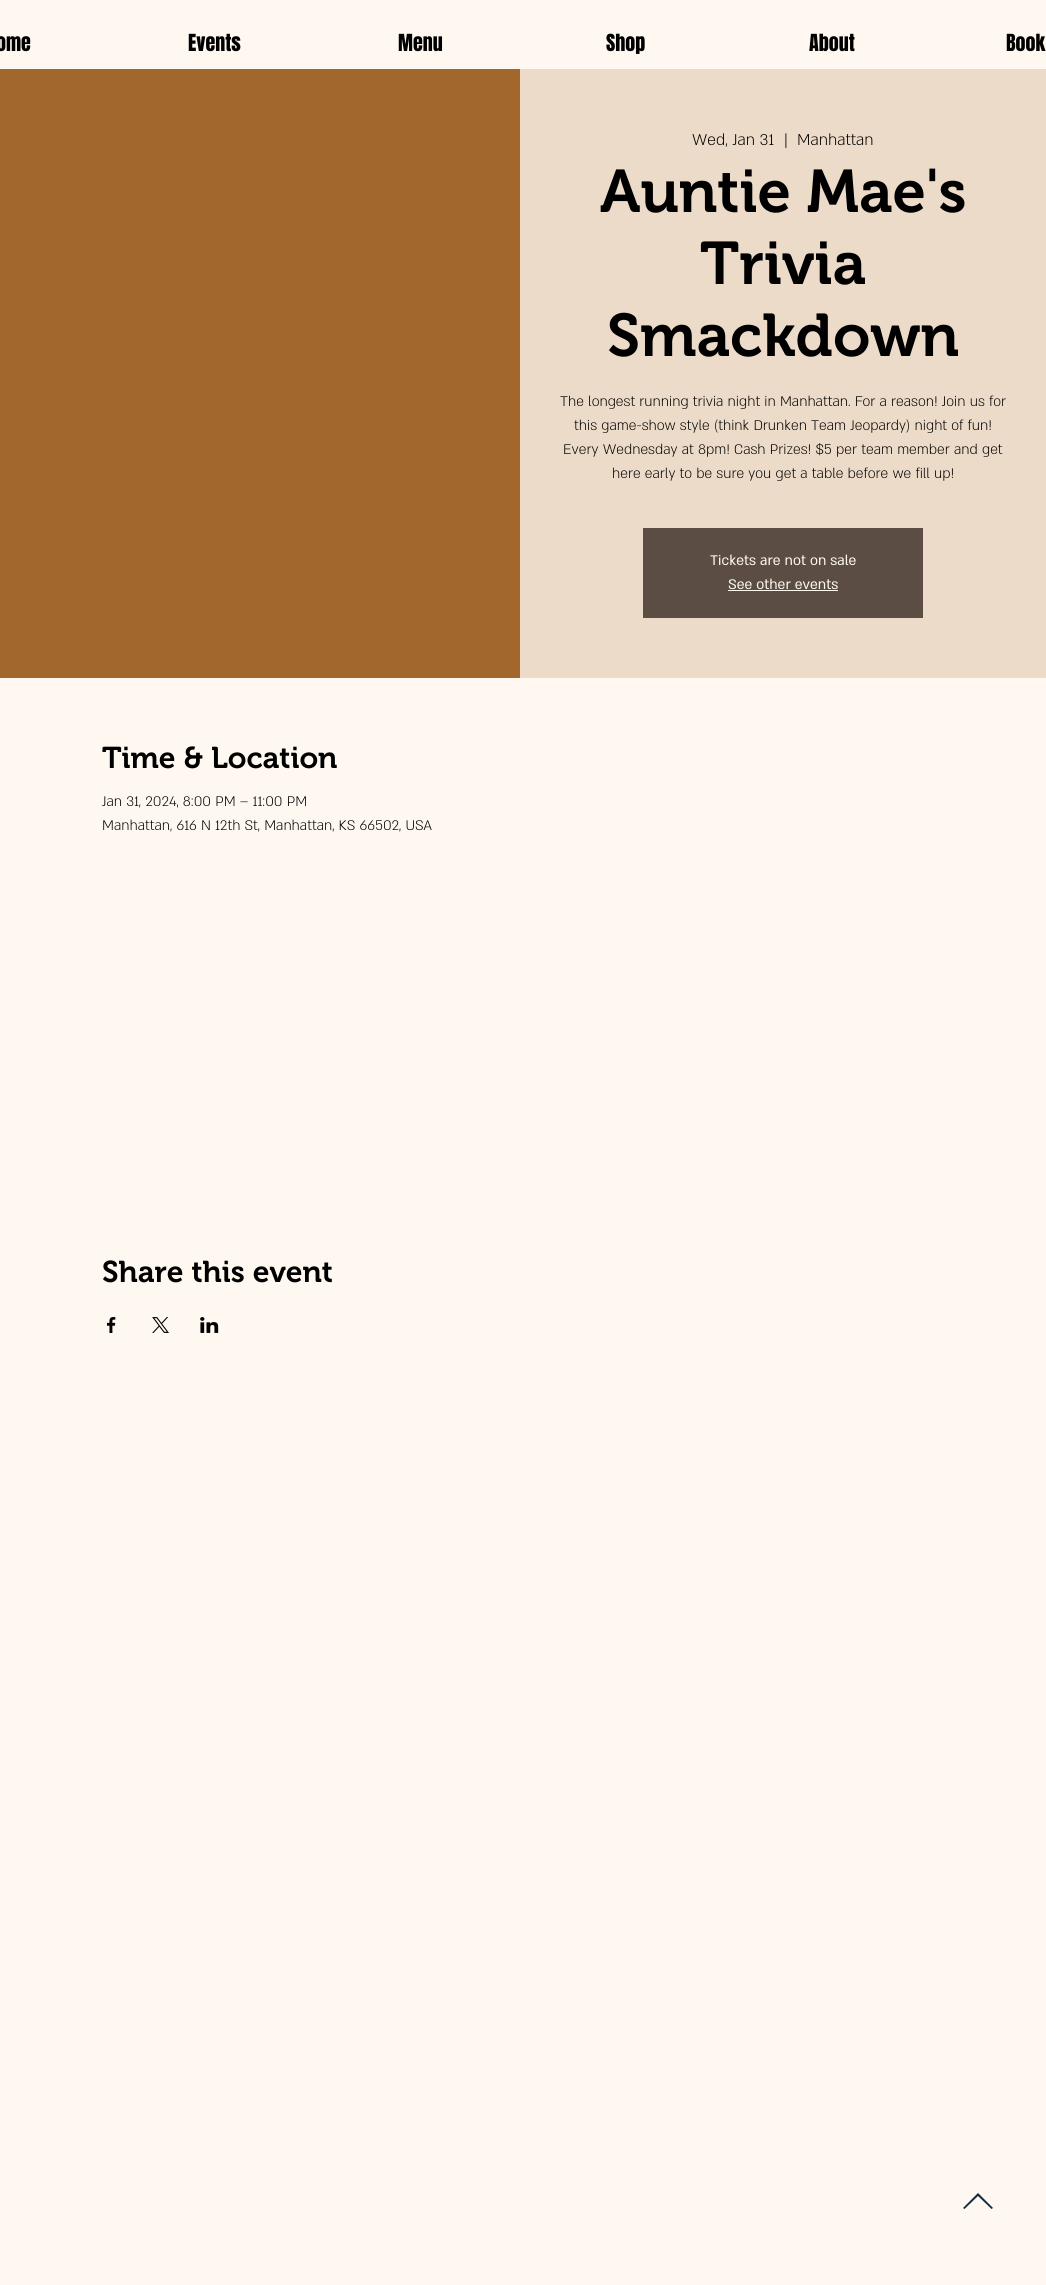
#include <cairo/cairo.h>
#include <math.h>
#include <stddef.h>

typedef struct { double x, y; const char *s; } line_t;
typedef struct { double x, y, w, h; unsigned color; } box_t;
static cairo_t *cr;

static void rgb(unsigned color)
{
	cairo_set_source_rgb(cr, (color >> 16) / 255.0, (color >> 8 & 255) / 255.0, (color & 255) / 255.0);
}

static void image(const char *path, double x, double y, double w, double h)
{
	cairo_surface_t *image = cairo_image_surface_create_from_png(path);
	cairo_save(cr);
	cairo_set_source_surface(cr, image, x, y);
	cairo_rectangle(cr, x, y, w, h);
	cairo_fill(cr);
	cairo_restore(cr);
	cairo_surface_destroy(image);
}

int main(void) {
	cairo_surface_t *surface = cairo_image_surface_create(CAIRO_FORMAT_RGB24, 1046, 2285);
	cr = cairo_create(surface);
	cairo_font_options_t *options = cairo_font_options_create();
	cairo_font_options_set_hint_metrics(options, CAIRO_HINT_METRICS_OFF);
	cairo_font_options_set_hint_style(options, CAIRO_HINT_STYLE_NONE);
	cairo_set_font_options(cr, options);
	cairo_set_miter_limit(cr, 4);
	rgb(0xfff8f1);
	cairo_paint(cr);
	{
		static const box_t items[] = {
			{0, 69, 520, 609, 0xa2672d},
			{520, 69, 526, 609, 0xeddbc9},
			{643, 528, 280, 90, 0x5b4d43},
			{728, 590, 110, 1, 0xfff8f1},
		};
		for (size_t i = 0; i < sizeof items / sizeof *items; i++) {
			rgb(items[i].color);
			cairo_rectangle(cr, items[i].x, items[i].y, items[i].w, items[i].h);
			cairo_fill(cr);
		}
	}
	image("img/1.png", 107, 1317, 9, 16);
	image("img/2.png", 152, 1317, 17, 16);
	image("img/3.png", 200, 1317, 19, 16);
	rgb(0x102b43);
	cairo_new_path(cr);
	cairo_move_to(cr, 963, 2208);
	cairo_line_to(cr, 964.5, 2209);
	cairo_line_to(cr, 978, 2196);
	cairo_line_to(cr, 991.5, 2209);
	cairo_line_to(cr, 993, 2208);
	cairo_line_to(cr, 978, 2193);
	cairo_close_path(cr);
	cairo_fill(cr);
	cairo_select_font_face(cr, "Anton", CAIRO_FONT_SLANT_NORMAL, CAIRO_FONT_WEIGHT_NORMAL);
	cairo_set_font_size(cr, 20);
	rgb(0x000000);
	{
		static const line_t items[] = {
			{-4, 51, "ome"},
			{188, 51, "Events"},
			{398, 51, "Menu"},
			{606, 51, "Shop"},
			{809, 51, "About"},
			{1006, 51, "Book"},
		};
		for (size_t i = 0; i < sizeof items / sizeof *items; i++) {
			cairo_move_to(cr, items[i].x, items[i].y);
			cairo_show_text(cr, items[i].s);
		}
	}
	cairo_select_font_face(cr, "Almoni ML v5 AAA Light", CAIRO_FONT_SLANT_NORMAL, CAIRO_FONT_WEIGHT_NORMAL);
	cairo_set_font_size(cr, 18);
	{
		static const line_t items[] = {
			{692, 145, "Wed, Jan 31"},
			{784, 145, "|"},
			{797, 145, "Manhattan"},
		};
		for (size_t i = 0; i < sizeof items / sizeof *items; i++) {
			cairo_move_to(cr, items[i].x, items[i].y);
			cairo_show_text(cr, items[i].s);
		}
	}
	cairo_select_font_face(cr, "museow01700 SemiBold", CAIRO_FONT_SLANT_NORMAL, CAIRO_FONT_WEIGHT_NORMAL);
	cairo_set_font_size(cr, 60);
	{
		static const line_t items[] = {
			{600, 212, "Auntie Mae's"},
			{700, 284, "Trivia"},
			{607, 356, "Smackdown"},
		};
		for (size_t i = 0; i < sizeof items / sizeof *items; i++) {
			cairo_move_to(cr, items[i].x, items[i].y);
			cairo_show_text(cr, items[i].s);
		}
	}
	cairo_select_font_face(cr, "Almoni ML v5 AAA Light", CAIRO_FONT_SLANT_NORMAL, CAIRO_FONT_WEIGHT_NORMAL);
	cairo_set_font_size(cr, 16);
	{
		static const line_t items[] = {
			{560, 406, "The longest running trivia night in Manhattan. For a reason! Join us for"},
			{574, 430, "this game-show style (think Drunken Team Jeopardy) night of fun!"},
			{563, 454, "Every Wednesday at 8pm! Cash Prizes! $5 per team member and get"},
			{612, 478, "here early to be sure you get a table before we fill up!"},
		};
		for (size_t i = 0; i < sizeof items / sizeof *items; i++) {
			cairo_move_to(cr, items[i].x, items[i].y);
			cairo_show_text(cr, items[i].s);
		}
	}
	cairo_select_font_face(cr, "Almoni ML v5 AAA", CAIRO_FONT_SLANT_NORMAL, CAIRO_FONT_WEIGHT_NORMAL);
	rgb(0xfff8f1);
	cairo_move_to(cr, 710, 565);
	cairo_show_text(cr, "Tickets are not on sale");
	cairo_move_to(cr, 728, 589);
	cairo_show_text(cr, "See other events");
	cairo_select_font_face(cr, "museow01700 SemiBold", CAIRO_FONT_SLANT_NORMAL, CAIRO_FONT_WEIGHT_NORMAL);
	cairo_set_font_size(cr, 30);
	rgb(0x000000);
	cairo_move_to(cr, 102, 768);
	cairo_show_text(cr, "Time & Location");
	cairo_select_font_face(cr, "Almoni ML v5 AAA Light", CAIRO_FONT_SLANT_NORMAL, CAIRO_FONT_WEIGHT_NORMAL);
	cairo_set_font_size(cr, 16);
	cairo_move_to(cr, 102, 806);
	cairo_show_text(cr, "Jan 31, 2024, 8:00 PM – 11:00 PM");
	cairo_move_to(cr, 102, 830);
	cairo_show_text(cr, "Manhattan, 616 N 12th St, Manhattan, KS 66502, USA");
	cairo_select_font_face(cr, "museow01700 SemiBold", CAIRO_FONT_SLANT_NORMAL, CAIRO_FONT_WEIGHT_NORMAL);
	cairo_set_font_size(cr, 30);
	cairo_move_to(cr, 102, 1282);
	cairo_show_text(cr, "Share this event");
	cairo_surface_write_to_png(surface, "page.png");
	cairo_font_options_destroy(options);
	cairo_destroy(cr);
	cairo_surface_destroy(surface);
	return 0;
}
